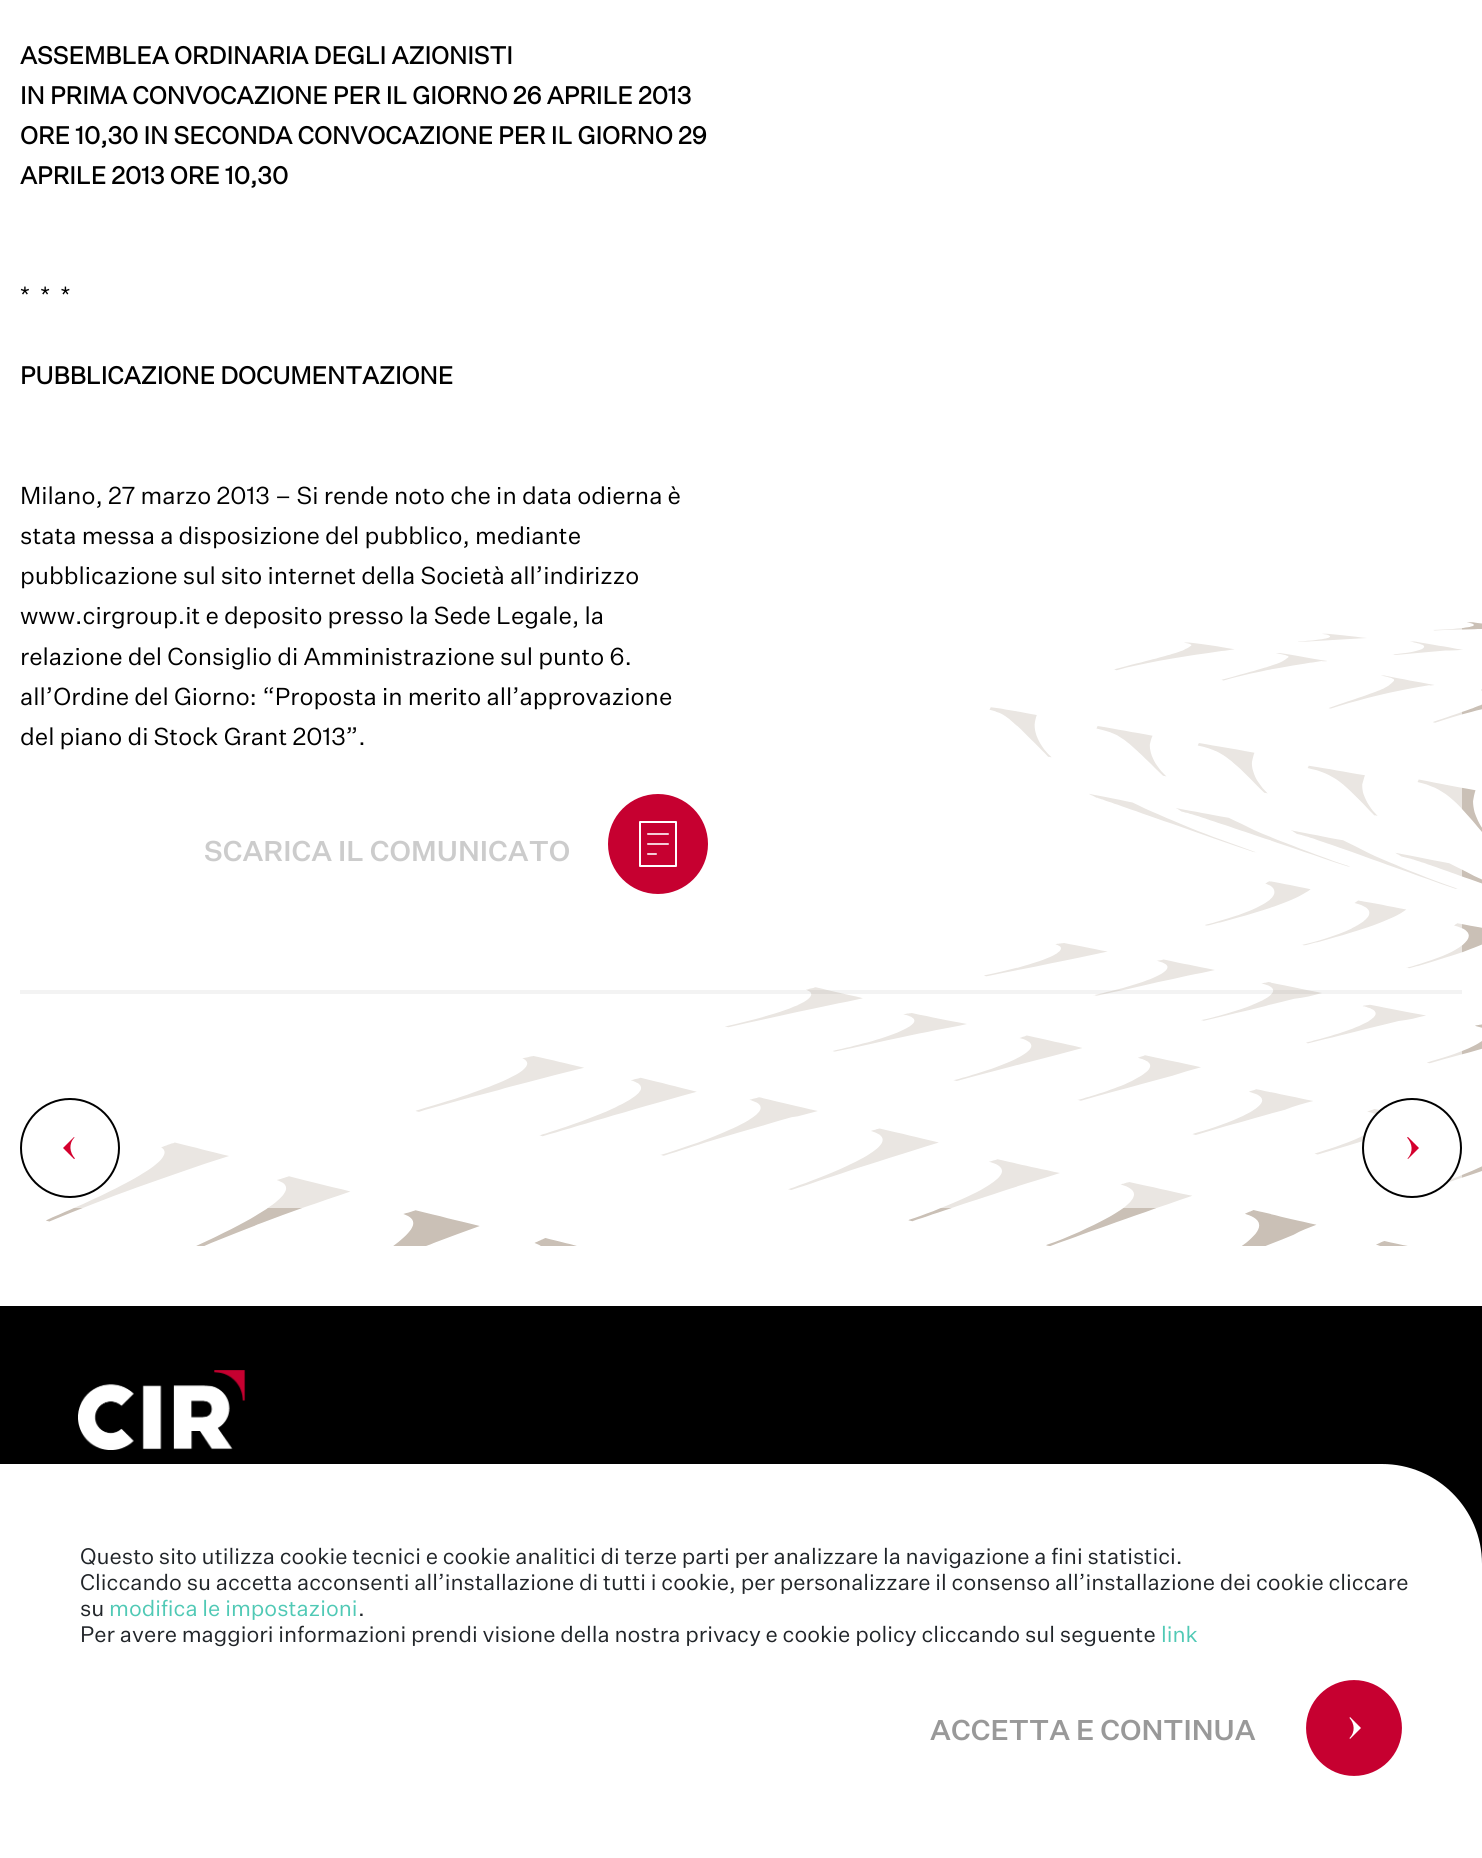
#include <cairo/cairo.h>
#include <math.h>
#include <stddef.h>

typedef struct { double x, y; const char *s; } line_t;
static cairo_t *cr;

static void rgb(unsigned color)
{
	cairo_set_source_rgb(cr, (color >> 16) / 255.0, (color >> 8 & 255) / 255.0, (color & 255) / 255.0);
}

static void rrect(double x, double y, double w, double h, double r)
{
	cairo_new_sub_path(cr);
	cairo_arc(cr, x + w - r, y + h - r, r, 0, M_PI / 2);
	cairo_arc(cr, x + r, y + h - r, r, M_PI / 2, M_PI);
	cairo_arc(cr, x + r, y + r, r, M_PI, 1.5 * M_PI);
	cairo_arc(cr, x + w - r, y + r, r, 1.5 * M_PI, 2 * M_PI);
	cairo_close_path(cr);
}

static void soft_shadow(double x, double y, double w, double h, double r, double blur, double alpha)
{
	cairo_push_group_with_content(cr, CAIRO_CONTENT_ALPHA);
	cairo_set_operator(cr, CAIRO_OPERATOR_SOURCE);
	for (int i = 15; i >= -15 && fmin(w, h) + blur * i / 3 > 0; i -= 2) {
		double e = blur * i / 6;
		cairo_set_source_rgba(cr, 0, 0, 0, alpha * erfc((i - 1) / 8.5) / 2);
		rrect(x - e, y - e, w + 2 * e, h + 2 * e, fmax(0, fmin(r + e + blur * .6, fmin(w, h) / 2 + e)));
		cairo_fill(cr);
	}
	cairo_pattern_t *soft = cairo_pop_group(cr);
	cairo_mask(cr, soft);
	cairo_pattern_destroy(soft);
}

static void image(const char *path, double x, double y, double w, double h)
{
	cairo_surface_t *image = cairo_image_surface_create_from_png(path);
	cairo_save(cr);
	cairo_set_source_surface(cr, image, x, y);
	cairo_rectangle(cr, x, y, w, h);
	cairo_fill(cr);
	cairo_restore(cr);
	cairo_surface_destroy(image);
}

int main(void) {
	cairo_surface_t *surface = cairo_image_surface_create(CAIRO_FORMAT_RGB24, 1482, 1858);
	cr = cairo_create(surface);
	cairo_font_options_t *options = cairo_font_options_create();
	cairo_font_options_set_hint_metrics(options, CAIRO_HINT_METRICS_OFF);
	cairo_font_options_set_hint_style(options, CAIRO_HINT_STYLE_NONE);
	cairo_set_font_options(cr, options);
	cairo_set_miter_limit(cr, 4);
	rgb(0xffffff);
	cairo_paint(cr);
	image("img/1.png", 46, 622, 1436, 624);
	cairo_set_source_rgba(cr, 0, 0, 0, 0.05);
	cairo_rectangle(cr, 20, 990, 1442, 4);
	cairo_fill(cr);
	rgb(0xc60030);
	cairo_arc(cr, 658, 844, 49, 0, 2 * M_PI);
	cairo_fill_preserve(cr);
	cairo_stroke(cr);
	cairo_new_path(cr);
	cairo_move_to(cr, 640, 822);
	cairo_line_to(cr, 676, 822);
	cairo_line_to(cr, 676, 866);
	cairo_line_to(cr, 640, 866);
	cairo_close_path(cr);
	rgb(0xffffff);
	cairo_set_line_cap(cr, CAIRO_LINE_CAP_ROUND);
	cairo_set_line_join(cr, CAIRO_LINE_JOIN_ROUND);
	cairo_stroke(cr);
	cairo_new_path(cr);
	cairo_move_to(cr, 648, 834);
	cairo_line_to(cr, 668, 834);
	cairo_move_to(cr, 648, 844);
	cairo_line_to(cr, 668, 844);
	cairo_move_to(cr, 648, 854);
	cairo_line_to(cr, 656, 854);
	rgb(0xf4ccd6);
	cairo_stroke(cr);
	cairo_new_path(cr);
	cairo_move_to(cr, 70, 1197);
	cairo_curve_to(cr, 43, 1197, 21, 1175, 21, 1148);
	cairo_curve_to(cr, 21, 1121, 43, 1099, 70, 1099);
	cairo_curve_to(cr, 97, 1099, 119, 1121, 119, 1148);
	cairo_curve_to(cr, 119, 1175, 97, 1197, 70, 1197);
	cairo_close_path(cr);
	rgb(0x000000);
	cairo_set_line_cap(cr, CAIRO_LINE_CAP_BUTT);
	cairo_set_line_join(cr, CAIRO_LINE_JOIN_MITER);
	cairo_stroke(cr);
	rgb(0xd4002d);
	cairo_new_path(cr);
	cairo_move_to(cr, 74.5, 1137.5);
	cairo_line_to(cr, 74, 1137);
	cairo_line_to(cr, 63, 1148);
	cairo_line_to(cr, 74, 1159);
	cairo_line_to(cr, 75, 1158.5);
	cairo_curve_to(cr, 69.5, 1152.5, 68.5, 1143.5, 74.5, 1137.5);
	cairo_fill(cr);
	rgb(0xffffff);
	cairo_arc(cr, 1412, 1148, 49, 0, 2 * M_PI);
	cairo_fill_preserve(cr);
	rgb(0x000000);
	cairo_stroke(cr);
	rgb(0xd4002d);
	cairo_new_path(cr);
	cairo_move_to(cr, 1407.5, 1158.5);
	cairo_line_to(cr, 1408, 1159);
	cairo_line_to(cr, 1419, 1148);
	cairo_line_to(cr, 1408, 1137);
	cairo_line_to(cr, 1407, 1137.5);
	cairo_curve_to(cr, 1412.5, 1143.5, 1413.5, 1152, 1407.5, 1158.5);
	cairo_fill(cr);
	rgb(0x000000);
	cairo_rectangle(cr, 0, 1306, 1482, 258);
	cairo_fill(cr);
	image("img/2.png", 78, 1370, 168, 80);
	rgb(0x000000);
	soft_shadow(4, 1468, 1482, 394, 100, 10, 0.4);
	rgb(0xffffff);
	cairo_new_path(cr);
	cairo_move_to(cr, 0, 1464);
	cairo_line_to(cr, 1382, 1464);
	cairo_curve_to(cr, 1437, 1464, 1482, 1509, 1482, 1564);
	cairo_line_to(cr, 1482, 1858);
	cairo_line_to(cr, 0, 1858);
	cairo_close_path(cr);
	cairo_fill(cr);
	rgb(0xc60030);
	cairo_arc(cr, 1354, 1728, 47, 0, 2 * M_PI);
	cairo_fill_preserve(cr);
	cairo_set_line_width(cr, 1.9);
	cairo_stroke(cr);
	rgb(0xffffff);
	cairo_new_path(cr);
	cairo_move_to(cr, 1349.5, 1738);
	cairo_line_to(cr, 1350, 1739);
	cairo_line_to(cr, 1361, 1728);
	cairo_line_to(cr, 1350, 1717);
	cairo_line_to(cr, 1349.5, 1718);
	cairo_curve_to(cr, 1354.5, 1723.5, 1355.5, 1732, 1349.5, 1738);
	cairo_fill(cr);
	cairo_select_font_face(cr, "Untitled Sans", CAIRO_FONT_SLANT_NORMAL, CAIRO_FONT_WEIGHT_BOLD);
	cairo_set_font_size(cr, 24);
	rgb(0x000000);
	{
		static const line_t items[] = {
			{20, 64, "ASSEMBLEA ORDINARIA DEGLI AZIONISTI"},
			{20, 104, "IN PRIMA CONVOCAZIONE PER IL GIORNO 26 APRILE 2013"},
			{20, 144, "ORE 10,30 IN SECONDA CONVOCAZIONE PER IL GIORNO 29"},
			{20, 184, "APRILE 2013 ORE 10,30"},
		};
		for (size_t i = 0; i < sizeof items / sizeof *items; i++) {
			cairo_move_to(cr, items[i].x, items[i].y);
			cairo_show_text(cr, items[i].s);
		}
	}
	cairo_select_font_face(cr, "Untitled Sans", CAIRO_FONT_SLANT_NORMAL, CAIRO_FONT_WEIGHT_NORMAL);
	cairo_move_to(cr, 20, 304);
	cairo_show_text(cr, "*  *  *");
	cairo_select_font_face(cr, "Untitled Sans", CAIRO_FONT_SLANT_NORMAL, CAIRO_FONT_WEIGHT_BOLD);
	cairo_move_to(cr, 20, 384);
	cairo_show_text(cr, "PUBBLICAZIONE DOCUMENTAZIONE");
	cairo_select_font_face(cr, "Untitled Sans", CAIRO_FONT_SLANT_NORMAL, CAIRO_FONT_WEIGHT_NORMAL);
	{
		static const line_t items[] = {
			{20, 504, "Milano, 27 marzo 2013 – Si rende noto che in data odierna è"},
			{20, 544, "stata messa a disposizione del pubblico, mediante"},
			{20, 584, "pubblicazione sul sito internet della Società all’indirizzo"},
			{20, 624, "www.cirgroup.it e deposito presso la Sede Legale, la"},
			{20, 665, "relazione del Consiglio di Amministrazione sul punto 6."},
			{20, 705, "all’Ordine del Giorno: “Proposta in merito all’approvazione"},
			{20, 745, "del piano di Stock Grant 2013”."},
		};
		for (size_t i = 0; i < sizeof items / sizeof *items; i++) {
			cairo_move_to(cr, items[i].x, items[i].y);
			cairo_show_text(cr, items[i].s);
		}
	}
	cairo_select_font_face(cr, "Untitled Sans Medium", CAIRO_FONT_SLANT_NORMAL, CAIRO_FONT_WEIGHT_NORMAL);
	cairo_set_font_size(cr, 28);
	rgb(0xcccccc);
	cairo_move_to(cr, 204, 861);
	cairo_show_text(cr, "SCARICA IL COMUNICATO");
	cairo_select_font_face(cr, "Untitled Sans", CAIRO_FONT_SLANT_NORMAL, CAIRO_FONT_WEIGHT_NORMAL);
	cairo_set_font_size(cr, 22);
	rgb(0x212529);
	{
		static const line_t items[] = {
			{80, 1564, "Questo sito utilizza cookie tecnici e cookie analitici di terze parti per analizzare la navigazione a fini statistici."},
			{80, 1590, "Cliccando su accetta acconsenti all’installazione di tutti i cookie, per personalizzare il consenso all’installazione dei cookie cliccare"},
			{80, 1616, "su"},
		};
		for (size_t i = 0; i < sizeof items / sizeof *items; i++) {
			cairo_move_to(cr, items[i].x, items[i].y);
			cairo_show_text(cr, items[i].s);
		}
	}
	rgb(0x50c9b5);
	cairo_move_to(cr, 109, 1616);
	cairo_show_text(cr, "modifica le impostazioni");
	rgb(0x212529);
	cairo_move_to(cr, 358, 1616);
	cairo_show_text(cr, ".");
	cairo_move_to(cr, 80, 1642);
	cairo_show_text(cr, "Per avere maggiori informazioni prendi visione della nostra privacy e cookie policy cliccando sul seguente");
	rgb(0x50c9b5);
	cairo_move_to(cr, 1161, 1642);
	cairo_show_text(cr, "link");
	cairo_select_font_face(cr, "Untitled Sans Medium", CAIRO_FONT_SLANT_NORMAL, CAIRO_FONT_WEIGHT_NORMAL);
	cairo_set_font_size(cr, 28);
	rgb(0x999999);
	cairo_move_to(cr, 930, 1740);
	cairo_show_text(cr, "ACCETTA E CONTINUA");
	cairo_surface_write_to_png(surface, "page.png");
	cairo_font_options_destroy(options);
	cairo_destroy(cr);
	cairo_surface_destroy(surface);
	return 0;
}
